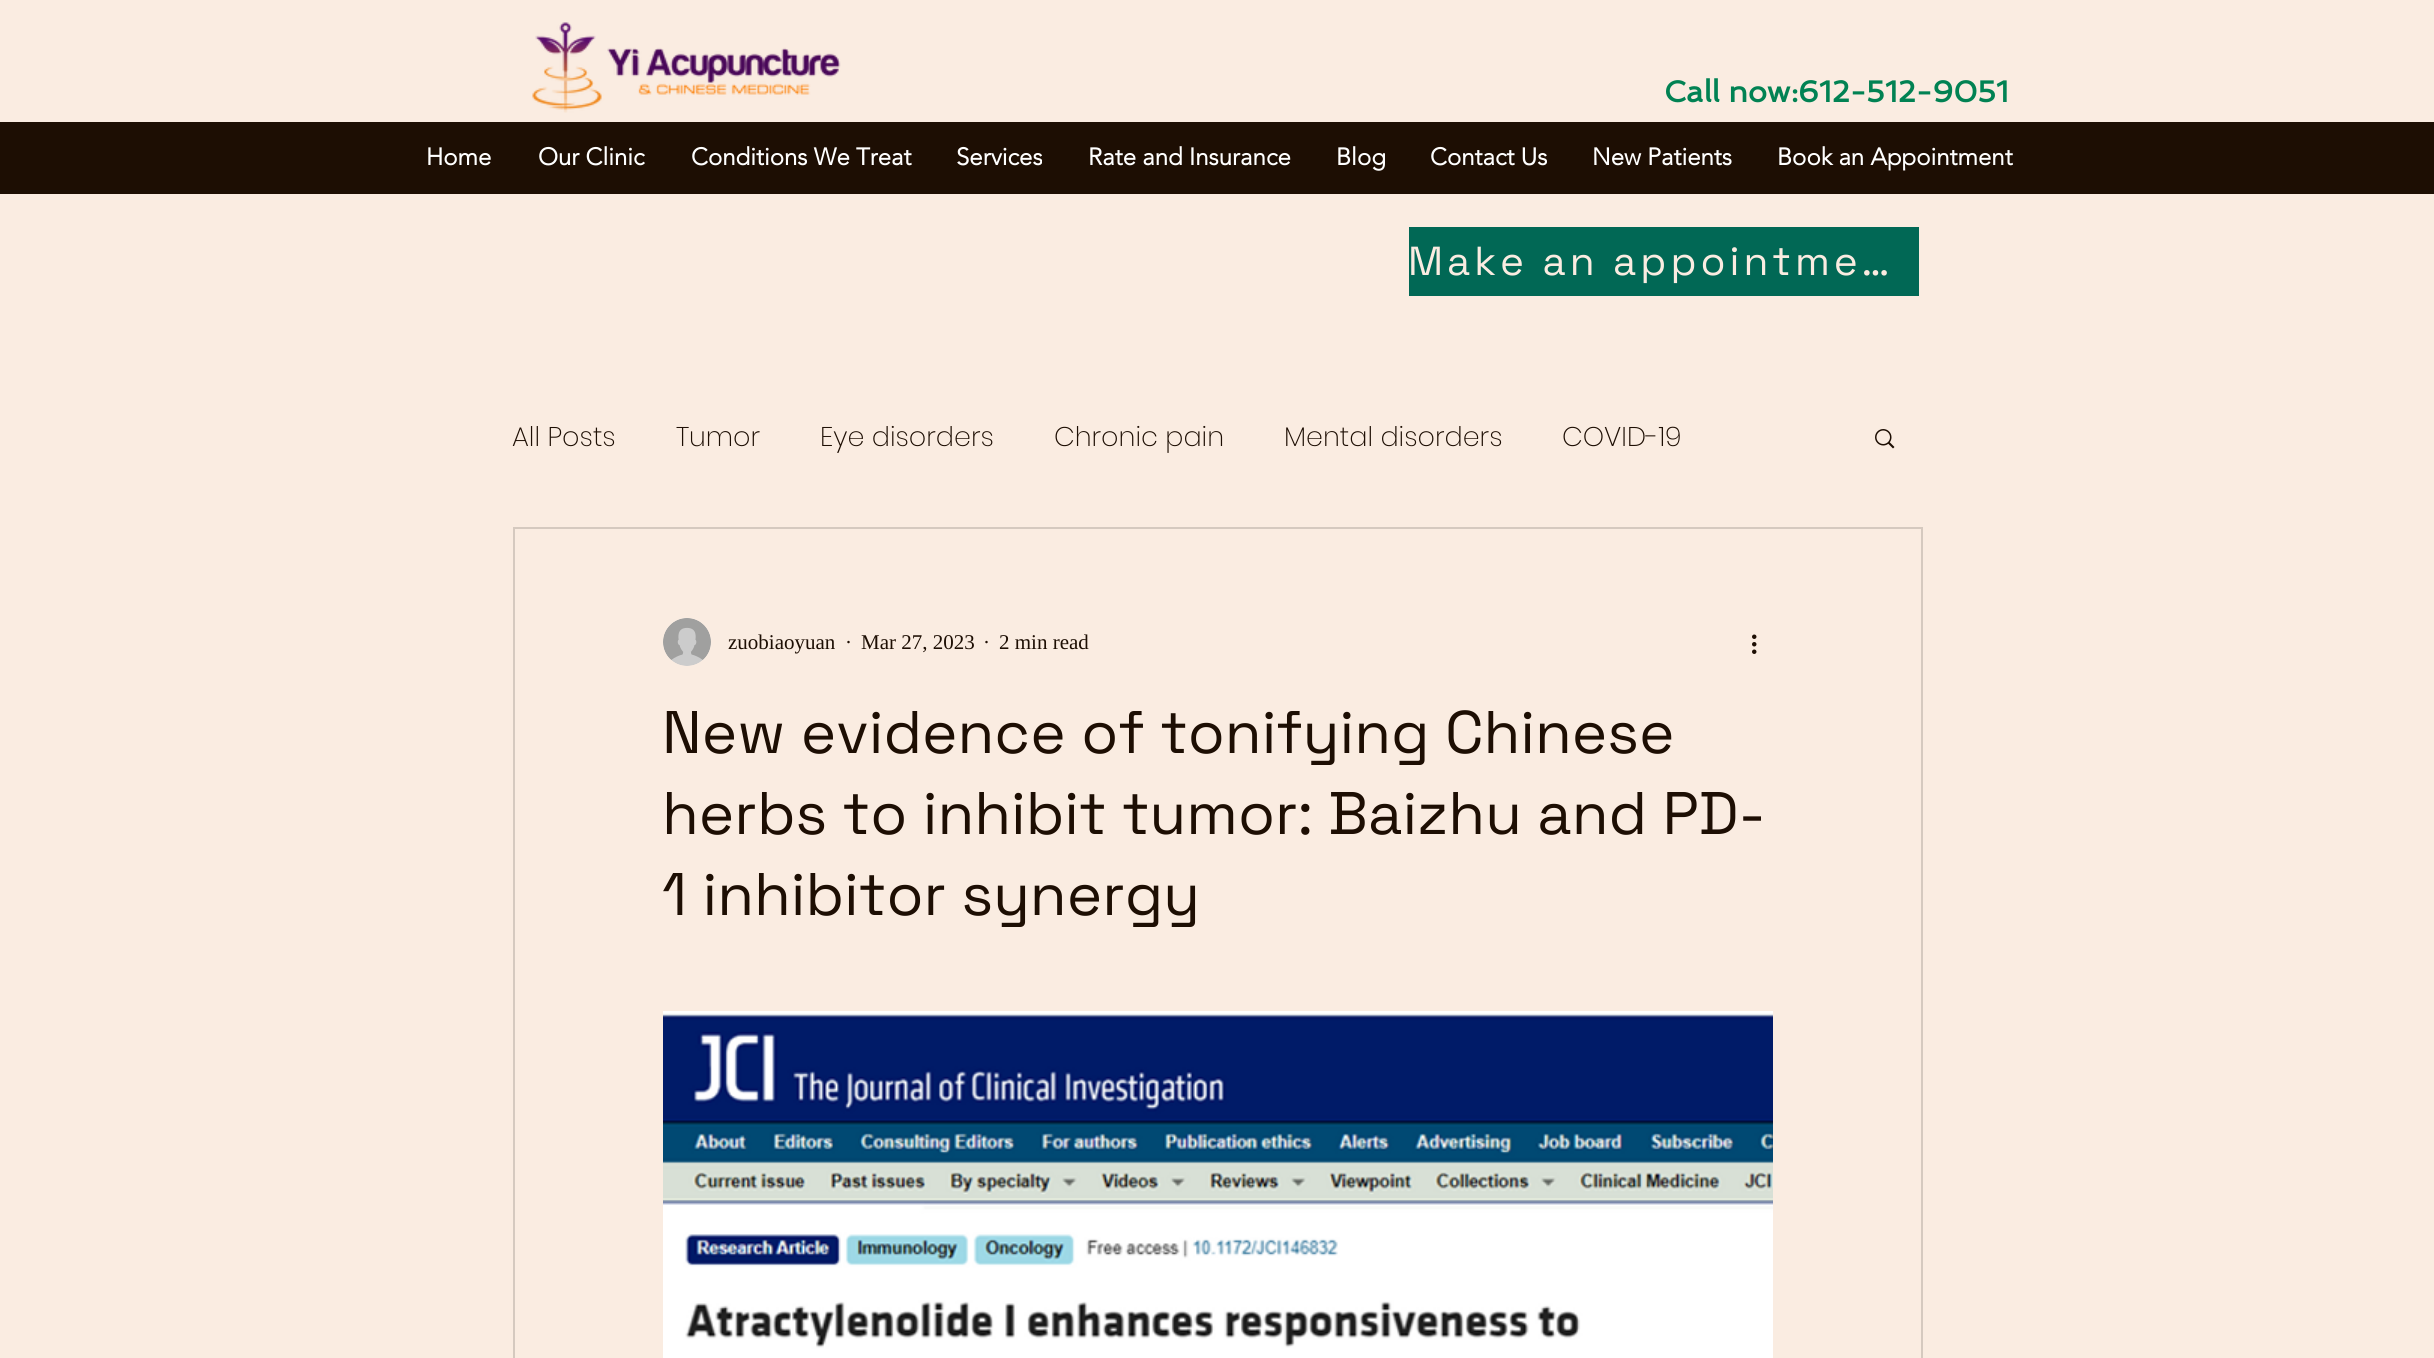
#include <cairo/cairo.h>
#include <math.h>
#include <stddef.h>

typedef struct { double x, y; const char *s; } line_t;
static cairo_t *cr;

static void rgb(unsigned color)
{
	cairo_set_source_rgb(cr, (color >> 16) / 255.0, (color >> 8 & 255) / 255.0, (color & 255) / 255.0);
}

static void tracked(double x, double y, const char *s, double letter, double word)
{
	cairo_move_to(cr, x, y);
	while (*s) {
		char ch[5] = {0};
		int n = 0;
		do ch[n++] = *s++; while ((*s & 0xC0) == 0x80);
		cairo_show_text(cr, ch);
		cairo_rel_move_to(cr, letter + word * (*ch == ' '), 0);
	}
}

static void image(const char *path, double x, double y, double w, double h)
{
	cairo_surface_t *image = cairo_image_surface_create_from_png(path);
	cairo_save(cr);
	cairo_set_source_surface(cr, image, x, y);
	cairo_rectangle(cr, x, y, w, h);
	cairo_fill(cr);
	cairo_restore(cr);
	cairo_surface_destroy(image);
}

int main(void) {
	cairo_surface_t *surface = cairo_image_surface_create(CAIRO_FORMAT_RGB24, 2434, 1358);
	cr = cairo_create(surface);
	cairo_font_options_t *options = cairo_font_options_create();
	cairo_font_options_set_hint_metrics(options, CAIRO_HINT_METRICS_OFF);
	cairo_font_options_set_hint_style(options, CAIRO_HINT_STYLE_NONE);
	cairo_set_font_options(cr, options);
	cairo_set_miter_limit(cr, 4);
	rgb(0xfaece1);
	cairo_paint(cr);
	image("img/1.png", 532, 22, 309, 91);
	rgb(0x1d0e03);
	cairo_rectangle(cr, 0, 122, 2434, 72);
	cairo_fill(cr);
	rgb(0x016855);
	cairo_rectangle(cr, 1409, 227, 510, 69);
	cairo_fill(cr);
	image("img/2.png", 1875, 429, 20, 20);
	cairo_rectangle(cr, 514, 528, 1408, 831);
	rgb(0xd5c9bf);
	cairo_stroke(cr);
	image("img/3.png", 663, 618, 48, 48);
	image("img/4.png", 1752, 634, 5, 20);
	image("img/5.png", 663, 1011, 1110, 347);
	cairo_select_font_face(cr, "Spinnaker", CAIRO_FONT_SLANT_NORMAL, CAIRO_FONT_WEIGHT_BOLD);
	cairo_set_font_size(cr, 30);
	rgb(0x018253);
	cairo_move_to(cr, 1664, 102);
	cairo_show_text(cr, "Call now:612-512-9051");
	cairo_select_font_face(cr, "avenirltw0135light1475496", CAIRO_FONT_SLANT_NORMAL, CAIRO_FONT_WEIGHT_BOLD);
	cairo_set_font_size(cr, 24);
	rgb(0xffffff);
	{
		static const line_t items[] = {
			{426, 165, "Home"},
			{538, 165, "Our Clinic"},
			{691, 165, "Conditions We Treat"},
			{956, 165, "Services"},
			{1088, 165, "Rate and Insurance"},
			{1336, 165, "Blog"},
			{1430, 165, "Contact Us"},
			{1592, 165, "New Patients"},
			{1777, 165, "Book an Appointment"},
		};
		for (size_t i = 0; i < sizeof items / sizeof *items; i++) {
			cairo_move_to(cr, items[i].x, items[i].y);
			cairo_show_text(cr, items[i].s);
		}
	}
	cairo_select_font_face(cr, "Space Grotesk", CAIRO_FONT_SLANT_NORMAL, CAIRO_FONT_WEIGHT_NORMAL);
	cairo_set_font_size(cr, 40.5);
	rgb(0xfaece1);
	tracked(1408, 275, "Make an appointme…", 4, 0);
	cairo_select_font_face(cr, "Poppins ExtraLight", CAIRO_FONT_SLANT_NORMAL, CAIRO_FONT_WEIGHT_NORMAL);
	cairo_set_font_size(cr, 27);
	rgb(0x1d0e03);
	{
		static const line_t items[] = {
			{512, 446, "All Posts"},
			{676, 446, "Tumor"},
			{820, 446, "Eye disorders"},
			{1054, 446, "Chronic pain"},
			{1284, 446, "Mental disorders"},
			{1562, 446, "COVID-19"},
		};
		for (size_t i = 0; i < sizeof items / sizeof *items; i++) {
			cairo_move_to(cr, items[i].x, items[i].y);
			cairo_show_text(cr, items[i].s);
		}
	}
	cairo_select_font_face(cr, "Liberation Serif", CAIRO_FONT_SLANT_NORMAL, CAIRO_FONT_WEIGHT_NORMAL);
	cairo_set_font_size(cr, 21);
	{
		static const line_t items[] = {
			{728, 649, "zuobiaoyuan"},
			{845, 649, "·"},
			{861, 649, "Mar 27, 2023"},
			{983, 649, "·"},
			{999, 649, "2 min read"},
		};
		for (size_t i = 0; i < sizeof items / sizeof *items; i++) {
			cairo_move_to(cr, items[i].x, items[i].y);
			cairo_show_text(cr, items[i].s);
		}
	}
	cairo_select_font_face(cr, "Space Grotesk", CAIRO_FONT_SLANT_NORMAL, CAIRO_FONT_WEIGHT_NORMAL);
	cairo_set_font_size(cr, 60);
	{
		static const line_t items[] = {
			{662, 753, "New evidence of tonifying Chinese"},
			{662, 834, "herbs to inhibit tumor: Baizhu and PD-"},
			{662, 915, "1 inhibitor synergy"},
		};
		for (size_t i = 0; i < sizeof items / sizeof *items; i++) {
			cairo_move_to(cr, items[i].x, items[i].y);
			cairo_show_text(cr, items[i].s);
		}
	}
	cairo_surface_write_to_png(surface, "page.png");
	cairo_font_options_destroy(options);
	cairo_destroy(cr);
	cairo_surface_destroy(surface);
	return 0;
}
